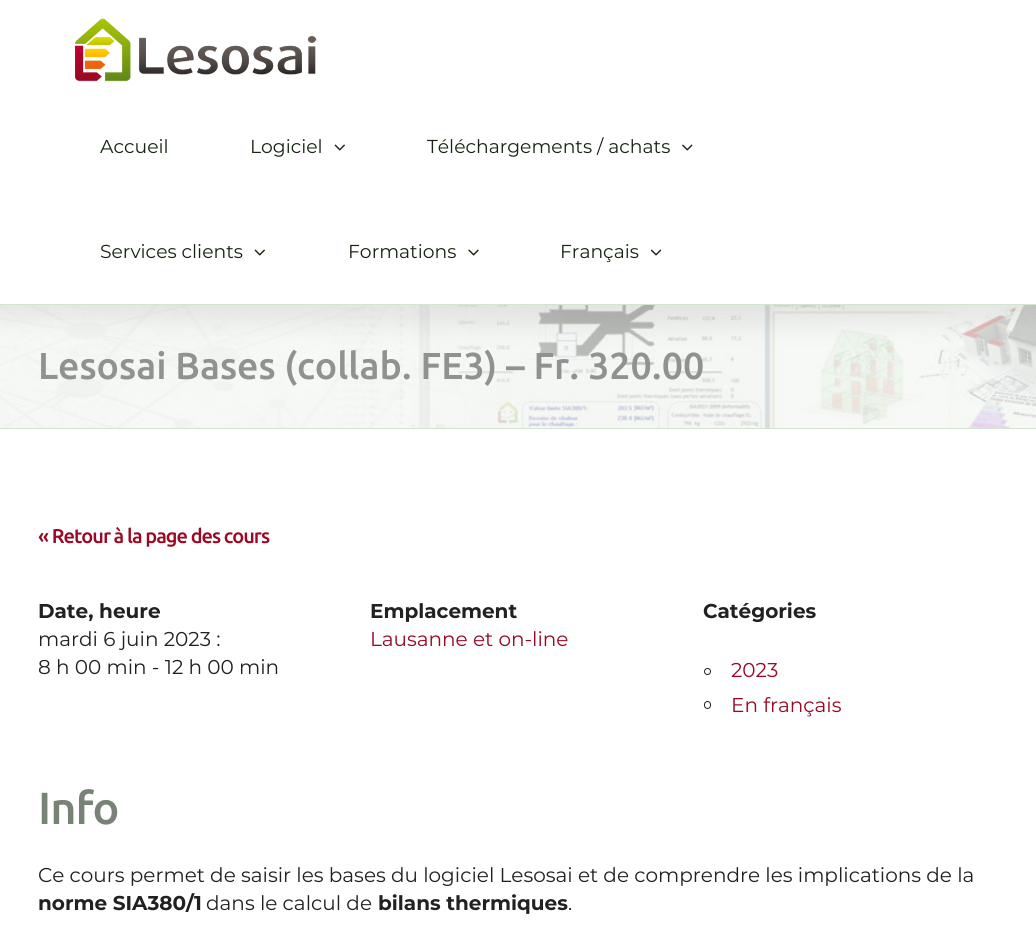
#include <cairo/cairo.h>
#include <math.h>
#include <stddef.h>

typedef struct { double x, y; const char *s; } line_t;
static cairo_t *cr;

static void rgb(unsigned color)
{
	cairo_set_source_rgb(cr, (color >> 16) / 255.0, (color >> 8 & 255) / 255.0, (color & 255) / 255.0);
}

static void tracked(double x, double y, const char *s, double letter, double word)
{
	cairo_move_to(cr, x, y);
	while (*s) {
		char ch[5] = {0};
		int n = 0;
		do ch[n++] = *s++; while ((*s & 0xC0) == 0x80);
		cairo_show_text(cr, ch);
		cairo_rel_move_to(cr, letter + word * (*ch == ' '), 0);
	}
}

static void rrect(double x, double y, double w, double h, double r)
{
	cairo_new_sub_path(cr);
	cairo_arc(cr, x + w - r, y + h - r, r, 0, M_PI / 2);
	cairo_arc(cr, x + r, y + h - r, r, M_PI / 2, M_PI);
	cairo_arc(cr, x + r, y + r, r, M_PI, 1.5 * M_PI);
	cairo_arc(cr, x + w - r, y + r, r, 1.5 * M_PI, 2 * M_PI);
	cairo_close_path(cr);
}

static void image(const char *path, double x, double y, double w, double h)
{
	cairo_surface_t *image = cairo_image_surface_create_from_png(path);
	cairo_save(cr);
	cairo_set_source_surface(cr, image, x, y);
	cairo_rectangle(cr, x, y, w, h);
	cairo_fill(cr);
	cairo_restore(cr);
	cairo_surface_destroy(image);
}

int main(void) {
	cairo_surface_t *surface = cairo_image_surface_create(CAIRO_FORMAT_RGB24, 1036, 927);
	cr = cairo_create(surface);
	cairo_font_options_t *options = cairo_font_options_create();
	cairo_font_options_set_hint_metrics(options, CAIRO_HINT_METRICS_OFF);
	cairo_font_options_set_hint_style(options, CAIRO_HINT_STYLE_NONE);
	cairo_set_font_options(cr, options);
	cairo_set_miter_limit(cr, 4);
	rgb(0xffffff);
	cairo_paint(cr);
	image("img/1.png", 75, 18, 242, 64);
	image("img/2.png", 334, 144, 11, 7);
	image("img/3.png", 682, 144, 11, 7);
	image("img/2.png", 254, 249, 11, 7);
	image("img/4.png", 468, 249, 11, 7);
	image("img/5.png", 650, 249, 12, 7);
	image("img/6.png", 0, 305, 1036, 123);
	rgb(0xd5e4d0);
	cairo_rectangle(cr, 0, 304, 1036, 1);
	cairo_fill(cr);
	cairo_rectangle(cr, 0, 428, 1036, 1);
	cairo_fill(cr);
	cairo_arc(cr, 707.5, 671.5, 3, 0, 2 * M_PI);
	rgb(0x212121);
	cairo_set_line_width(cr, 1);
	cairo_stroke(cr);
	rrect(704.5, 701.5, 6, 7, 3);
	cairo_stroke(cr);
	cairo_select_font_face(cr, "Montserrat", CAIRO_FONT_SLANT_NORMAL, CAIRO_FONT_WEIGHT_NORMAL);
	cairo_set_font_size(cr, 18.75);
	rgb(0x162511);
	{
		static const line_t items[] = {
			{100, 153, "Accueil"},
			{250, 153, "Logiciel"},
			{427, 153, "Téléchargements / achats"},
			{100, 258, "Services clients"},
			{348, 258, "Formations"},
			{560, 258, "Français"},
		};
		for (size_t i = 0; i < sizeof items / sizeof *items; i++) {
			cairo_move_to(cr, items[i].x, items[i].y);
			cairo_show_text(cr, items[i].s);
		}
	}
	cairo_select_font_face(cr, "Ubuntu Medium", CAIRO_FONT_SLANT_NORMAL, CAIRO_FONT_WEIGHT_NORMAL);
	cairo_set_font_size(cr, 37.5);
	rgb(0x8f928e);
	cairo_move_to(cr, 38, 379);
	cairo_show_text(cr, "Lesosai Bases (collab. FE3) – Fr. 320.00");
	cairo_set_font_size(cr, 20);
	rgb(0x990824);
	tracked(38, 543, "« Retour à la page des cours", -1, 0);
	cairo_select_font_face(cr, "Montserrat", CAIRO_FONT_SLANT_NORMAL, CAIRO_FONT_WEIGHT_BOLD);
	rgb(0x212121);
	cairo_move_to(cr, 38, 618);
	cairo_show_text(cr, "Date, heure");
	cairo_select_font_face(cr, "Montserrat", CAIRO_FONT_SLANT_NORMAL, CAIRO_FONT_WEIGHT_NORMAL);
	cairo_move_to(cr, 38, 646);
	cairo_show_text(cr, "mardi 6 juin 2023 :");
	cairo_move_to(cr, 38, 674);
	cairo_show_text(cr, "8 h 00 min - 12 h 00 min");
	cairo_select_font_face(cr, "Montserrat", CAIRO_FONT_SLANT_NORMAL, CAIRO_FONT_WEIGHT_BOLD);
	cairo_move_to(cr, 370, 618);
	cairo_show_text(cr, "Emplacement");
	cairo_select_font_face(cr, "Montserrat", CAIRO_FONT_SLANT_NORMAL, CAIRO_FONT_WEIGHT_NORMAL);
	rgb(0x990824);
	cairo_move_to(cr, 370, 646);
	cairo_show_text(cr, "Lausanne et on-line");
	cairo_select_font_face(cr, "Montserrat", CAIRO_FONT_SLANT_NORMAL, CAIRO_FONT_WEIGHT_BOLD);
	rgb(0x212121);
	cairo_move_to(cr, 703, 618);
	cairo_show_text(cr, "Catégories");
	cairo_select_font_face(cr, "Montserrat", CAIRO_FONT_SLANT_NORMAL, CAIRO_FONT_WEIGHT_NORMAL);
	rgb(0x990824);
	cairo_move_to(cr, 731, 677);
	cairo_show_text(cr, "2023");
	cairo_move_to(cr, 731, 712);
	cairo_show_text(cr, "En français");
	cairo_select_font_face(cr, "Ubuntu Medium", CAIRO_FONT_SLANT_NORMAL, CAIRO_FONT_WEIGHT_NORMAL);
	cairo_set_font_size(cr, 45);
	rgb(0x798276);
	tracked(38, 824, "Info", -1, 0);
	cairo_select_font_face(cr, "Montserrat", CAIRO_FONT_SLANT_NORMAL, CAIRO_FONT_WEIGHT_NORMAL);
	cairo_set_font_size(cr, 20);
	rgb(0x212121);
	cairo_move_to(cr, 38, 882);
	cairo_show_text(cr, "Ce cours permet de saisir les bases du logiciel Lesosai et de comprendre les implications de la");
	cairo_select_font_face(cr, "Montserrat", CAIRO_FONT_SLANT_NORMAL, CAIRO_FONT_WEIGHT_BOLD);
	cairo_move_to(cr, 38, 910);
	cairo_show_text(cr, "norme SIA380/1");
	cairo_select_font_face(cr, "Montserrat", CAIRO_FONT_SLANT_NORMAL, CAIRO_FONT_WEIGHT_NORMAL);
	cairo_move_to(cr, 206, 910);
	cairo_show_text(cr, "dans le calcul de");
	cairo_select_font_face(cr, "Montserrat", CAIRO_FONT_SLANT_NORMAL, CAIRO_FONT_WEIGHT_BOLD);
	cairo_move_to(cr, 378, 910);
	cairo_show_text(cr, "bilans thermiques");
	cairo_select_font_face(cr, "Montserrat", CAIRO_FONT_SLANT_NORMAL, CAIRO_FONT_WEIGHT_NORMAL);
	cairo_move_to(cr, 568, 910);
	cairo_show_text(cr, ".");
	cairo_surface_write_to_png(surface, "page.png");
	cairo_font_options_destroy(options);
	cairo_destroy(cr);
	cairo_surface_destroy(surface);
	return 0;
}
